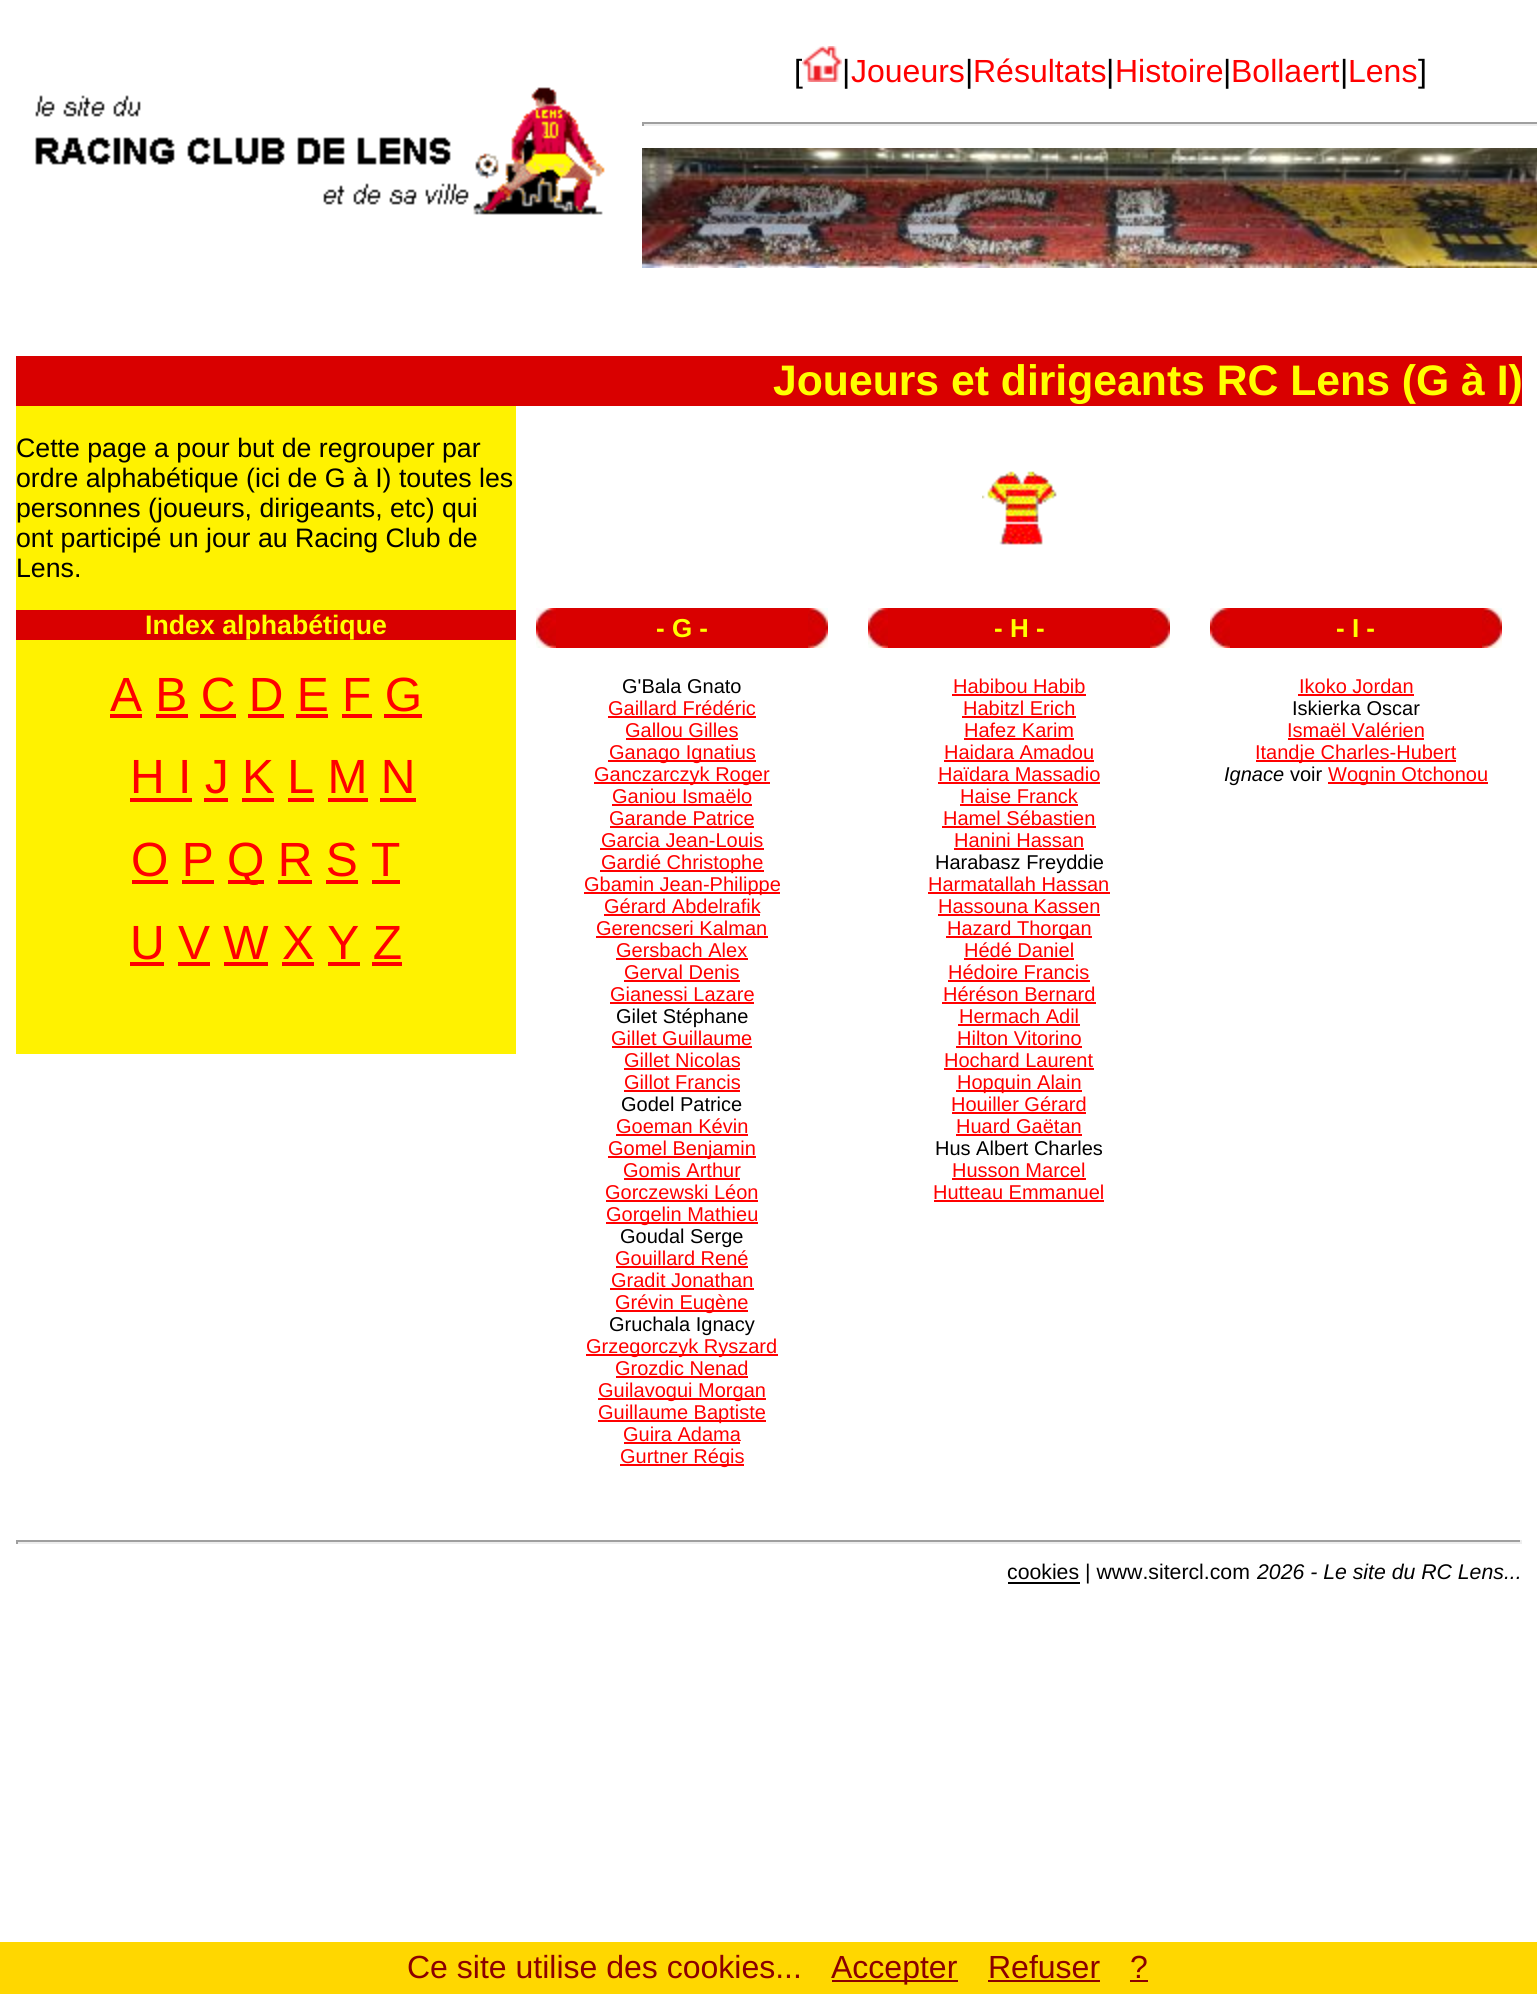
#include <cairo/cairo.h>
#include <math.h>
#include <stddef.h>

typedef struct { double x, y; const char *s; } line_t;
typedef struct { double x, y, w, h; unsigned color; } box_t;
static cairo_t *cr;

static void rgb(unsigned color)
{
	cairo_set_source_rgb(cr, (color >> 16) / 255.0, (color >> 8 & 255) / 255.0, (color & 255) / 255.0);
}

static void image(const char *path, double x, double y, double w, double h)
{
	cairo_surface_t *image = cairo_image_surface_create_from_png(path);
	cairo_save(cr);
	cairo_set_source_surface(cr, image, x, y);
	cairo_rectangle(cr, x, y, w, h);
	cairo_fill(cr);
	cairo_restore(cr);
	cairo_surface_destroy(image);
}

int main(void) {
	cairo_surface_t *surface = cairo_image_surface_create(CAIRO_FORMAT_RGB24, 1537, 1994);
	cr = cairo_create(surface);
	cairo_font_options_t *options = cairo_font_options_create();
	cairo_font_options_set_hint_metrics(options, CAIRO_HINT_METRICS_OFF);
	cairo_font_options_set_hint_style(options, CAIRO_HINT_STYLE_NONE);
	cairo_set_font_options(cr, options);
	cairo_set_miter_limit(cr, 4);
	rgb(0xffffff);
	cairo_paint(cr);
	{
		static const box_t items[] = {
			{642, 122, 895, 2, 0x9f9f9f},
			{642, 124, 895, 2, 0xeeeeee},
			{642, 122, 2, 4, 0x9f9f9f},
		};
		for (size_t i = 0; i < sizeof items / sizeof *items; i++) {
			rgb(items[i].color);
			cairo_rectangle(cr, items[i].x, items[i].y, items[i].w, items[i].h);
			cairo_fill(cr);
		}
	}
	image("img/2.png", 642, 148, 895, 120);
	image("img/3.png", 35, 87, 570, 128);
	{
		static const box_t items[] = {
			{16, 356, 1506, 50, 0xd90000},
			{16, 406, 500, 648, 0xfff200},
			{16, 610, 500, 30, 0xd90000},
			{110, 714, 32, 4, 0xff0000},
			{156, 714, 32, 4, 0xff0000},
			{200, 714, 36, 4, 0xff0000},
			{248, 714, 36, 4, 0xff0000},
			{296, 714, 32, 4, 0xff0000},
			{342, 714, 30, 4, 0xff0000},
			{384, 714, 38, 4, 0xff0000},
			{130, 798, 62, 4, 0xff0000},
			{204, 798, 24, 4, 0xff0000},
			{242, 798, 32, 4, 0xff0000},
			{288, 798, 26, 4, 0xff0000},
			{328, 798, 40, 4, 0xff0000},
			{380, 798, 36, 4, 0xff0000},
			{132, 880, 36, 4, 0xff0000},
			{182, 880, 32, 4, 0xff0000},
			{228, 880, 36, 4, 0xff0000},
			{278, 880, 34, 4, 0xff0000},
			{326, 880, 32, 4, 0xff0000},
			{372, 880, 28, 4, 0xff0000},
			{130, 962, 34, 4, 0xff0000},
			{178, 962, 32, 4, 0xff0000},
			{224, 962, 44, 4, 0xff0000},
			{282, 962, 32, 4, 0xff0000},
			{328, 962, 32, 4, 0xff0000},
			{372, 962, 30, 4, 0xff0000},
		};
		for (size_t i = 0; i < sizeof items / sizeof *items; i++) {
			rgb(items[i].color);
			cairo_rectangle(cr, items[i].x, items[i].y, items[i].w, items[i].h);
			cairo_fill(cr);
		}
	}
	image("img/4.png", 982, 471, 75, 74);
	rgb(0xd90000);
	cairo_rectangle(cr, 556, 608, 252, 40);
	cairo_fill(cr);
	image("img/5.png", 536, 608, 20, 40);
	image("img/6.png", 808, 608, 20, 40);
	{
		static const box_t items[] = {
			{608, 716, 148, 2, 0xff0000},
			{626, 738, 112, 2, 0xff0000},
			{608, 760, 148, 2, 0xff0000},
			{594, 782, 176, 2, 0xff0000},
			{612, 804, 140, 2, 0xff0000},
			{610, 826, 144, 2, 0xff0000},
			{600, 848, 164, 2, 0xff0000},
			{600, 870, 164, 2, 0xff0000},
			{584, 892, 196, 2, 0xff0000},
			{604, 914, 156, 2, 0xff0000},
			{596, 936, 172, 2, 0xff0000},
			{616, 958, 132, 2, 0xff0000},
			{624, 980, 116, 2, 0xff0000},
			{610, 1002, 144, 2, 0xff0000},
			{612, 1046, 140, 2, 0xff0000},
			{624, 1068, 116, 2, 0xff0000},
			{624, 1090, 116, 2, 0xff0000},
			{616, 1134, 132, 2, 0xff0000},
			{608, 1156, 148, 2, 0xff0000},
			{624, 1178, 116, 2, 0xff0000},
			{606, 1200, 152, 2, 0xff0000},
			{606, 1222, 152, 2, 0xff0000},
			{616, 1266, 132, 2, 0xff0000},
			{610, 1288, 144, 2, 0xff0000},
			{616, 1310, 132, 2, 0xff0000},
			{586, 1354, 192, 2, 0xff0000},
			{616, 1376, 132, 2, 0xff0000},
			{598, 1398, 168, 2, 0xff0000},
			{598, 1420, 168, 2, 0xff0000},
			{624, 1442, 116, 2, 0xff0000},
			{620, 1464, 124, 2, 0xff0000},
			{888, 608, 262, 40, 0xd90000},
		};
		for (size_t i = 0; i < sizeof items / sizeof *items; i++) {
			rgb(items[i].color);
			cairo_rectangle(cr, items[i].x, items[i].y, items[i].w, items[i].h);
			cairo_fill(cr);
		}
	}
	image("img/5.png", 868, 608, 20, 40);
	image("img/6.png", 1150, 608, 20, 40);
	{
		static const box_t items[] = {
			{952, 694, 134, 2, 0xff0000},
			{962, 716, 114, 2, 0xff0000},
			{964, 738, 110, 2, 0xff0000},
			{944, 760, 150, 2, 0xff0000},
			{938, 782, 162, 2, 0xff0000},
			{960, 804, 118, 2, 0xff0000},
			{942, 826, 154, 2, 0xff0000},
			{954, 848, 130, 2, 0xff0000},
			{928, 892, 182, 2, 0xff0000},
			{938, 914, 162, 2, 0xff0000},
			{946, 936, 146, 2, 0xff0000},
			{964, 958, 110, 2, 0xff0000},
			{948, 980, 142, 2, 0xff0000},
			{942, 1002, 154, 2, 0xff0000},
			{958, 1024, 122, 2, 0xff0000},
			{956, 1046, 126, 2, 0xff0000},
			{944, 1068, 150, 2, 0xff0000},
			{956, 1090, 126, 2, 0xff0000},
			{952, 1112, 134, 2, 0xff0000},
			{956, 1134, 126, 2, 0xff0000},
			{952, 1178, 134, 2, 0xff0000},
			{934, 1200, 170, 2, 0xff0000},
			{1230, 608, 252, 40, 0xd90000},
		};
		for (size_t i = 0; i < sizeof items / sizeof *items; i++) {
			rgb(items[i].color);
			cairo_rectangle(cr, items[i].x, items[i].y, items[i].w, items[i].h);
			cairo_fill(cr);
		}
	}
	image("img/5.png", 1210, 608, 20, 40);
	image("img/6.png", 1482, 608, 20, 40);
	{
		static const box_t items[] = {
			{1298, 694, 116, 2, 0xff0000},
			{1288, 738, 136, 2, 0xff0000},
			{1256, 760, 200, 2, 0xff0000},
			{1328, 782, 160, 2, 0xff0000},
			{16, 1540, 1506, 2, 0x9f9f9f},
			{1520, 1540, 2, 4, 0xeeeeee},
			{16, 1542, 1506, 2, 0xeeeeee},
			{16, 1540, 2, 4, 0x9f9f9f},
			{1008, 1582, 72, 2, 0x000000},
			{0, 1942, 1537, 52, 0xffd700},
			{832, 1980, 126, 2, 0x8b0000},
			{988, 1980, 112, 2, 0x8b0000},
			{1130, 1980, 18, 2, 0x8b0000},
		};
		for (size_t i = 0; i < sizeof items / sizeof *items; i++) {
			rgb(items[i].color);
			cairo_rectangle(cr, items[i].x, items[i].y, items[i].w, items[i].h);
			cairo_fill(cr);
		}
	}
	cairo_select_font_face(cr, "Liberation Sans", CAIRO_FONT_SLANT_NORMAL, CAIRO_FONT_WEIGHT_NORMAL);
	cairo_set_font_size(cr, 32);
	rgb(0x000000);
	cairo_move_to(cr, 794, 82);
	cairo_show_text(cr, "[");
	image("img/1.png", 802, 46, 40, 36);
	cairo_move_to(cr, 842, 82);
	cairo_show_text(cr, "|");
	rgb(0xff0000);
	cairo_move_to(cr, 851, 82);
	cairo_show_text(cr, "Joueurs");
	rgb(0x000000);
	cairo_move_to(cr, 965, 82);
	cairo_show_text(cr, "|");
	rgb(0xff0000);
	cairo_move_to(cr, 973, 82);
	cairo_show_text(cr, "Résultats");
	rgb(0x000000);
	cairo_move_to(cr, 1106, 82);
	cairo_show_text(cr, "|");
	rgb(0xff0000);
	cairo_move_to(cr, 1115, 82);
	cairo_show_text(cr, "Histoire");
	rgb(0x000000);
	cairo_move_to(cr, 1223, 82);
	cairo_show_text(cr, "|");
	rgb(0xff0000);
	cairo_move_to(cr, 1231, 82);
	cairo_show_text(cr, "Bollaert");
	rgb(0x000000);
	cairo_move_to(cr, 1340, 82);
	cairo_show_text(cr, "|");
	rgb(0xff0000);
	cairo_move_to(cr, 1348, 82);
	cairo_show_text(cr, "Lens");
	rgb(0x000000);
	cairo_move_to(cr, 1418, 82);
	cairo_show_text(cr, "]");
	cairo_select_font_face(cr, "Liberation Sans", CAIRO_FONT_SLANT_NORMAL, CAIRO_FONT_WEIGHT_BOLD);
	cairo_set_font_size(cr, 42.7);
	rgb(0xffff00);
	cairo_move_to(cr, 773, 395);
	cairo_show_text(cr, "Joueurs et dirigeants RC Lens (G à I)");
	cairo_select_font_face(cr, "Liberation Sans", CAIRO_FONT_SLANT_NORMAL, CAIRO_FONT_WEIGHT_NORMAL);
	cairo_set_font_size(cr, 26.7);
	rgb(0x000000);
	{
		static const line_t items[] = {
			{16, 457, "Cette page a pour but de regrouper par"},
			{16, 487, "ordre alphabétique (ici de G à I) toutes les"},
			{16, 517, "personnes (joueurs, dirigeants, etc) qui"},
			{16, 547, "ont participé un jour au Racing Club de"},
			{16, 577, "Lens."},
		};
		for (size_t i = 0; i < sizeof items / sizeof *items; i++) {
			cairo_move_to(cr, items[i].x, items[i].y);
			cairo_show_text(cr, items[i].s);
		}
	}
	cairo_select_font_face(cr, "Liberation Sans", CAIRO_FONT_SLANT_NORMAL, CAIRO_FONT_WEIGHT_BOLD);
	rgb(0xffff00);
	cairo_move_to(cr, 145, 634);
	cairo_show_text(cr, "Index alphabétique");
	cairo_select_font_face(cr, "Liberation Sans", CAIRO_FONT_SLANT_NORMAL, CAIRO_FONT_WEIGHT_NORMAL);
	cairo_set_font_size(cr, 48);
	rgb(0xff0000);
	{
		static const line_t items[] = {
			{110, 711, "A B C D E F G"},
			{130, 793, "H I J K L M N"},
			{131, 876, "O P"},
			{227, 876, "Q R S T"},
			{130, 959, "U V W X Y Z"},
		};
		for (size_t i = 0; i < sizeof items / sizeof *items; i++) {
			cairo_move_to(cr, items[i].x, items[i].y);
			cairo_show_text(cr, items[i].s);
		}
	}
	cairo_select_font_face(cr, "Liberation Sans", CAIRO_FONT_SLANT_NORMAL, CAIRO_FONT_WEIGHT_BOLD);
	cairo_set_font_size(cr, 26);
	rgb(0xffff00);
	cairo_move_to(cr, 656, 637);
	cairo_show_text(cr, "- G -");
	cairo_select_font_face(cr, "Liberation Sans", CAIRO_FONT_SLANT_NORMAL, CAIRO_FONT_WEIGHT_NORMAL);
	cairo_set_font_size(cr, 20);
	rgb(0x000000);
	cairo_move_to(cr, 622, 693);
	cairo_show_text(cr, "G'Bala Gnato");
	rgb(0xff0000);
	{
		static const line_t items[] = {
			{608, 715, "Gaillard Frédéric"},
			{625, 737, "Gallou Gilles"},
			{609, 759, "Ganago Ignatius"},
			{594, 781, "Ganczarczyk Roger"},
			{612, 803, "Ganiou Ismaëlo"},
			{609, 825, "Garande Patrice"},
			{601, 847, "Garcia Jean-Louis"},
			{601, 869, "Gardié Christophe"},
			{584, 891, "Gbamin Jean-Philippe"},
			{604, 913, "Gérard Abdelrafik"},
			{596, 935, "Gerencseri Kalman"},
			{616, 957, "Gersbach Alex"},
			{624, 979, "Gerval Denis"},
			{610, 1001, "Gianessi Lazare"},
		};
		for (size_t i = 0; i < sizeof items / sizeof *items; i++) {
			cairo_move_to(cr, items[i].x, items[i].y);
			cairo_show_text(cr, items[i].s);
		}
	}
	rgb(0x000000);
	cairo_move_to(cr, 616, 1023);
	cairo_show_text(cr, "Gilet Stéphane");
	rgb(0xff0000);
	{
		static const line_t items[] = {
			{611, 1045, "Gillet Guillaume"},
			{624, 1067, "Gillet Nicolas"},
			{624, 1089, "Gillot Francis"},
		};
		for (size_t i = 0; i < sizeof items / sizeof *items; i++) {
			cairo_move_to(cr, items[i].x, items[i].y);
			cairo_show_text(cr, items[i].s);
		}
	}
	rgb(0x000000);
	cairo_move_to(cr, 621, 1111);
	cairo_show_text(cr, "Godel Patrice");
	rgb(0xff0000);
	{
		static const line_t items[] = {
			{616, 1133, "Goeman Kévin"},
			{608, 1155, "Gomel Benjamin"},
			{623, 1177, "Gomis Arthur"},
			{605, 1199, "Gorczewski Léon"},
			{606, 1221, "Gorgelin Mathieu"},
		};
		for (size_t i = 0; i < sizeof items / sizeof *items; i++) {
			cairo_move_to(cr, items[i].x, items[i].y);
			cairo_show_text(cr, items[i].s);
		}
	}
	rgb(0x000000);
	cairo_move_to(cr, 620, 1243);
	cairo_show_text(cr, "Goudal Serge");
	rgb(0xff0000);
	{
		static const line_t items[] = {
			{615, 1265, "Gouillard René"},
			{611, 1287, "Gradit Jonathan"},
			{615, 1309, "Grévin Eugène"},
		};
		for (size_t i = 0; i < sizeof items / sizeof *items; i++) {
			cairo_move_to(cr, items[i].x, items[i].y);
			cairo_show_text(cr, items[i].s);
		}
	}
	rgb(0x000000);
	cairo_move_to(cr, 609, 1331);
	cairo_show_text(cr, "Gruchala Ignacy");
	rgb(0xff0000);
	{
		static const line_t items[] = {
			{586, 1353, "Grzegorczyk Ryszard"},
			{615, 1375, "Grozdic Nenad"},
			{598, 1397, "Guilavogui Morgan"},
			{598, 1419, "Guillaume Baptiste"},
			{623, 1441, "Guira Adama"},
			{620, 1463, "Gurtner Régis"},
		};
		for (size_t i = 0; i < sizeof items / sizeof *items; i++) {
			cairo_move_to(cr, items[i].x, items[i].y);
			cairo_show_text(cr, items[i].s);
		}
	}
	cairo_select_font_face(cr, "Liberation Sans", CAIRO_FONT_SLANT_NORMAL, CAIRO_FONT_WEIGHT_BOLD);
	cairo_set_font_size(cr, 26);
	rgb(0xffff00);
	cairo_move_to(cr, 994, 637);
	cairo_show_text(cr, "- H -");
	cairo_select_font_face(cr, "Liberation Sans", CAIRO_FONT_SLANT_NORMAL, CAIRO_FONT_WEIGHT_NORMAL);
	cairo_set_font_size(cr, 20);
	rgb(0xff0000);
	{
		static const line_t items[] = {
			{953, 693, "Habibou Habib"},
			{963, 715, "Habitzl Erich"},
			{964, 737, "Hafez Karim"},
			{944, 759, "Haidara Amadou"},
			{938, 781, "Haïdara Massadio"},
			{960, 803, "Haise Franck"},
			{943, 825, "Hamel Sébastien"},
			{954, 847, "Hanini Hassan"},
		};
		for (size_t i = 0; i < sizeof items / sizeof *items; i++) {
			cairo_move_to(cr, items[i].x, items[i].y);
			cairo_show_text(cr, items[i].s);
		}
	}
	rgb(0x000000);
	cairo_move_to(cr, 935, 869);
	cairo_show_text(cr, "Harabasz Freyddie");
	rgb(0xff0000);
	{
		static const line_t items[] = {
			{928, 891, "Harmatallah Hassan"},
			{938, 913, "Hassouna Kassen"},
			{947, 935, "Hazard Thorgan"},
			{964, 957, "Hédé Daniel"},
			{948, 979, "Hédoire Francis"},
			{943, 1001, "Héréson Bernard"},
			{959, 1023, "Hermach Adil"},
			{957, 1045, "Hilton Vitorino"},
			{944, 1067, "Hochard Laurent"},
			{957, 1089, "Hopquin Alain"},
			{951, 1111, "Houiller Gérard"},
			{956, 1133, "Huard Gaëtan"},
		};
		for (size_t i = 0; i < sizeof items / sizeof *items; i++) {
			cairo_move_to(cr, items[i].x, items[i].y);
			cairo_show_text(cr, items[i].s);
		}
	}
	rgb(0x000000);
	cairo_move_to(cr, 935, 1155);
	cairo_show_text(cr, "Hus Albert Charles");
	rgb(0xff0000);
	cairo_move_to(cr, 952, 1177);
	cairo_show_text(cr, "Husson Marcel");
	cairo_move_to(cr, 933, 1199);
	cairo_show_text(cr, "Hutteau Emmanuel");
	cairo_select_font_face(cr, "Liberation Sans", CAIRO_FONT_SLANT_NORMAL, CAIRO_FONT_WEIGHT_BOLD);
	cairo_set_font_size(cr, 26);
	rgb(0xffff00);
	cairo_move_to(cr, 1336, 637);
	cairo_show_text(cr, "- I -");
	cairo_select_font_face(cr, "Liberation Sans", CAIRO_FONT_SLANT_NORMAL, CAIRO_FONT_WEIGHT_NORMAL);
	cairo_set_font_size(cr, 20);
	rgb(0xff0000);
	cairo_move_to(cr, 1299, 693);
	cairo_show_text(cr, "Ikoko Jordan");
	rgb(0x000000);
	cairo_move_to(cr, 1292, 715);
	cairo_show_text(cr, "Iskierka Oscar");
	rgb(0xff0000);
	cairo_move_to(cr, 1287, 737);
	cairo_show_text(cr, "Ismaël Valérien");
	cairo_move_to(cr, 1255, 759);
	cairo_show_text(cr, "Itandje Charles-Hubert");
	cairo_select_font_face(cr, "Liberation Sans", CAIRO_FONT_SLANT_ITALIC, CAIRO_FONT_WEIGHT_NORMAL);
	rgb(0x000000);
	cairo_move_to(cr, 1224, 781);
	cairo_show_text(cr, "Ignace");
	cairo_select_font_face(cr, "Liberation Sans", CAIRO_FONT_SLANT_NORMAL, CAIRO_FONT_WEIGHT_NORMAL);
	cairo_move_to(cr, 1290, 781);
	cairo_show_text(cr, "voir");
	rgb(0xff0000);
	cairo_move_to(cr, 1328, 781);
	cairo_show_text(cr, "Wognin Otchonou");
	cairo_set_font_size(cr, 21.25);
	rgb(0x000000);
	cairo_move_to(cr, 1007, 1579);
	cairo_show_text(cr, "cookies | www.sitercl.com");
	cairo_select_font_face(cr, "Liberation Sans", CAIRO_FONT_SLANT_ITALIC, CAIRO_FONT_WEIGHT_NORMAL);
	cairo_move_to(cr, 1257, 1579);
	cairo_show_text(cr, "2026 - Le site du RC Lens...");
	cairo_select_font_face(cr, "Liberation Sans", CAIRO_FONT_SLANT_NORMAL, CAIRO_FONT_WEIGHT_NORMAL);
	cairo_set_font_size(cr, 32);
	rgb(0x8b0000);
	{
		static const line_t items[] = {
			{407, 1978, "Ce site utilise des cookies..."},
			{831, 1978, "Accepter"},
			{988, 1978, "Refuser"},
			{1130, 1978, "?"},
		};
		for (size_t i = 0; i < sizeof items / sizeof *items; i++) {
			cairo_move_to(cr, items[i].x, items[i].y);
			cairo_show_text(cr, items[i].s);
		}
	}
	cairo_surface_write_to_png(surface, "page.png");
	cairo_font_options_destroy(options);
	cairo_destroy(cr);
	cairo_surface_destroy(surface);
	return 0;
}
